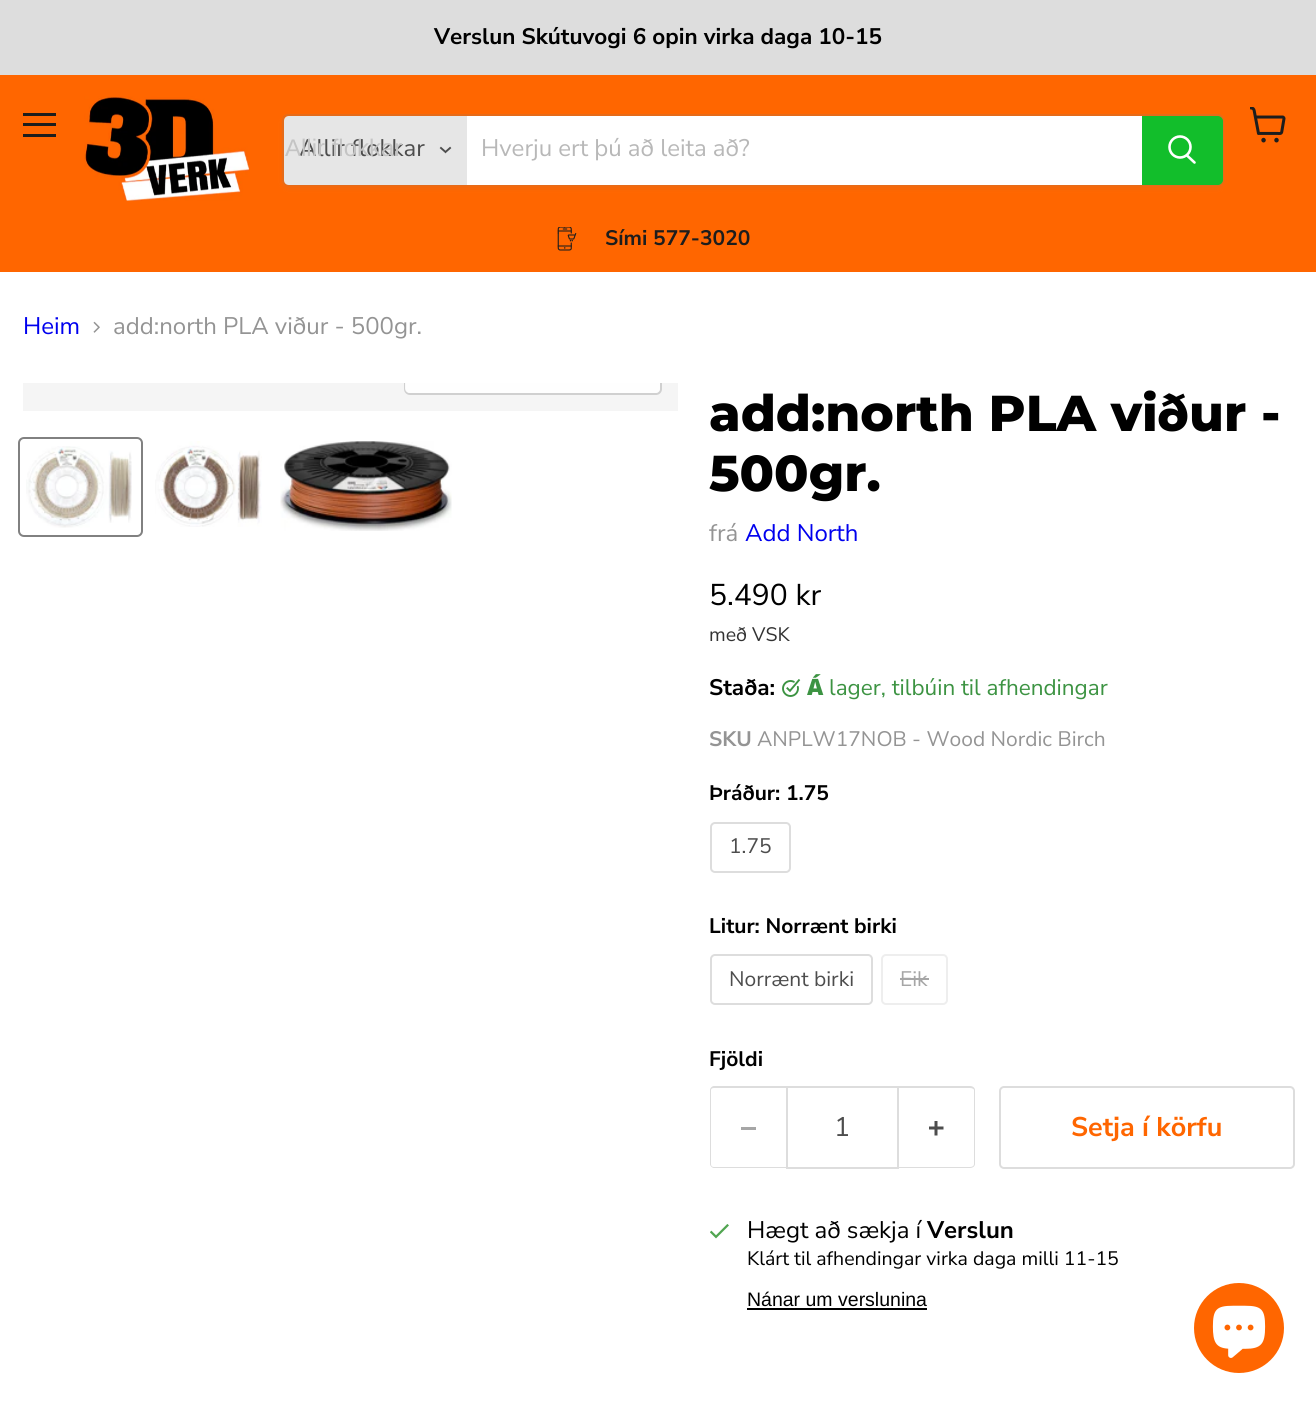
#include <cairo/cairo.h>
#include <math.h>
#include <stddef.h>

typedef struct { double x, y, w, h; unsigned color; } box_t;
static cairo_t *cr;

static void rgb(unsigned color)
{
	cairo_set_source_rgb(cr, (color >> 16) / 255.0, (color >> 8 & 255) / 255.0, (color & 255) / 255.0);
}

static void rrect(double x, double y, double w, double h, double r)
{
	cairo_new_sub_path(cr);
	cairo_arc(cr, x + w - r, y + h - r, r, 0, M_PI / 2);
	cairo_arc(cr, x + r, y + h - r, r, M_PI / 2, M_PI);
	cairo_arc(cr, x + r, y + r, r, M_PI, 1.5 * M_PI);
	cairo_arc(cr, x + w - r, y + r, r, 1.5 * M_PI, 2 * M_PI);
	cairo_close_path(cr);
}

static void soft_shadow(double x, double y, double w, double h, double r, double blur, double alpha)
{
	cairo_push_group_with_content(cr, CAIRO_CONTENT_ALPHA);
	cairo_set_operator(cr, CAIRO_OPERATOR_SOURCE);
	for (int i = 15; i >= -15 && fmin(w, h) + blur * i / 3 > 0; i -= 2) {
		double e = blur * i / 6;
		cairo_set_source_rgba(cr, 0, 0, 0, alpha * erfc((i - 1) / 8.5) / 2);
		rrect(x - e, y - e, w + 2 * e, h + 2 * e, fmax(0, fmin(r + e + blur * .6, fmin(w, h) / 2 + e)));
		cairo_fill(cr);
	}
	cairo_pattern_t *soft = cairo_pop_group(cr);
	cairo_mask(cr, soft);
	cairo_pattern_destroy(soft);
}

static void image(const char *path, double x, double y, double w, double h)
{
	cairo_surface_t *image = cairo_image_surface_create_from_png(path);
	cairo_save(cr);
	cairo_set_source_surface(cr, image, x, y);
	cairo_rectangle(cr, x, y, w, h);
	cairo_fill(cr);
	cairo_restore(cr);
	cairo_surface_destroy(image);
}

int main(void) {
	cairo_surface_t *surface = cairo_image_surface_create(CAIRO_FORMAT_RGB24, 1316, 1403);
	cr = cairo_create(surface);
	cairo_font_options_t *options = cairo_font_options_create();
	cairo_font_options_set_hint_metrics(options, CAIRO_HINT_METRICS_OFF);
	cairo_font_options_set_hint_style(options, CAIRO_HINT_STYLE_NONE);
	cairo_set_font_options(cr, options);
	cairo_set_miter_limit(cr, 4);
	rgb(0xffffff);
	cairo_paint(cr);
	{
		static const box_t items[] = {
			{0, 0, 1316, 75, 0xdddddd},
			{0, 75, 1316, 197, 0xff6600},
			{23, 113, 33, 3, 0x1d1d1d},
			{23, 123, 33, 3, 0x1d1d1d},
			{23, 134, 33, 3, 0x1d1d1d},
		};
		for (size_t i = 0; i < sizeof items / sizeof *items; i++) {
			rgb(items[i].color);
			cairo_rectangle(cr, items[i].x, items[i].y, items[i].w, items[i].h);
			cairo_fill(cr);
		}
	}
	image("img/1.png", 1250, 107, 36, 36);
	image("img/2.png", 84, 96, 166, 105);
	cairo_save(cr);
	cairo_set_fill_rule(cr, CAIRO_FILL_RULE_EVEN_ODD);
	cairo_new_path(cr);
	cairo_move_to(cr, 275, 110);
	cairo_line_to(cr, 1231, 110);
	cairo_line_to(cr, 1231, 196);
	cairo_line_to(cr, 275, 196);
	cairo_close_path(cr);
	cairo_move_to(cr, 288, 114);
	cairo_line_to(cr, 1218, 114);
	cairo_curve_to(cr, 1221.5, 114, 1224, 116.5, 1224, 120);
	cairo_line_to(cr, 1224, 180);
	cairo_curve_to(cr, 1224, 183.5, 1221.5, 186, 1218, 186);
	cairo_line_to(cr, 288, 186);
	cairo_curve_to(cr, 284.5, 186, 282, 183.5, 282, 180);
	cairo_line_to(cr, 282, 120);
	cairo_curve_to(cr, 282, 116.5, 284.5, 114, 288, 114);
	cairo_close_path(cr);
	cairo_clip(cr);
	rgb(0x808080);
	soft_shadow(282, 117, 942, 72, 6, 2, 0.11);
	cairo_restore(cr);
	rrect(283, 115, 940, 70, 5);
	cairo_set_source_rgba(cr, 0.502, 0.502, 0.502, 0.2);
	cairo_stroke(cr);
	rgb(0xe6e6e6);
	cairo_new_path(cr);
	cairo_move_to(cr, 289, 116);
	cairo_line_to(cr, 467, 116);
	cairo_line_to(cr, 467, 185);
	cairo_line_to(cr, 289, 185);
	cairo_curve_to(cr, 286, 185, 284, 183, 284, 180);
	cairo_line_to(cr, 284, 121);
	cairo_curve_to(cr, 284, 118, 286, 116, 289, 116);
	cairo_close_path(cr);
	cairo_fill(cr);
	cairo_new_path(cr);
	cairo_move_to(cr, 445.5, 152);
	cairo_line_to(cr, 450, 148);
	cairo_move_to(cr, 445.5, 152);
	cairo_line_to(cr, 441, 148);
	rgb(0x4d4d4d);
	cairo_set_line_width(cr, 1.9);
	cairo_set_line_cap(cr, CAIRO_LINE_CAP_SQUARE);
	cairo_stroke(cr);
	rgb(0xffffff);
	cairo_rectangle(cr, 467, 116, 675, 69);
	cairo_fill(cr);
	rgb(0x12be2b);
	cairo_new_path(cr);
	cairo_move_to(cr, 1143, 117);
	cairo_line_to(cr, 1218, 117);
	cairo_curve_to(cr, 1220, 117, 1222, 119, 1222, 121);
	cairo_line_to(cr, 1222, 180);
	cairo_curve_to(cr, 1222, 182, 1220, 184, 1218, 184);
	cairo_line_to(cr, 1143, 184);
	cairo_close_path(cr);
	cairo_fill_preserve(cr);
	cairo_set_line_width(cr, 2);
	cairo_set_line_cap(cr, CAIRO_LINE_CAP_BUTT);
	cairo_stroke(cr);
	cairo_new_path(cr);
	cairo_move_to(cr, 1194.5, 162.5);
	cairo_line_to(cr, 1187, 155.5);
	rgb(0xffffff);
	cairo_set_line_width(cr, 2.6);
	cairo_set_line_cap(cr, CAIRO_LINE_CAP_ROUND);
	cairo_stroke(cr);
	cairo_arc(cr, 1180, 147, 10.5, 0, 2 * M_PI);
	cairo_set_line_cap(cr, CAIRO_LINE_CAP_BUTT);
	cairo_stroke(cr);
	image("img/3.png", 557, 227, 20, 24);
	image("img/4.png", 93, 321, 7, 12);
	rgb(0xf5f5f5);
	cairo_rectangle(cr, 23, 383, 655, 28);
	cairo_fill(cr);
	cairo_save(cr);
	cairo_rectangle(cr, 23, 383, 655, 28);
	cairo_clip(cr);
	rrect(405, 351, 256, 43, 5);
	rgb(0xd0d0d0);
	cairo_set_line_width(cr, 2);
	cairo_stroke(cr);
	cairo_restore(cr);
	cairo_set_source_rgba(cr, 1, 1, 1, 0.9);
	cairo_new_path(cr);
	cairo_move_to(cr, 405, 383);
	cairo_line_to(cr, 660, 383);
	cairo_line_to(cr, 660, 388);
	cairo_curve_to(cr, 660, 391, 658, 393, 655, 393);
	cairo_line_to(cr, 410, 393);
	cairo_curve_to(cr, 407, 393, 405, 391, 405, 388);
	cairo_close_path(cr);
	cairo_fill(cr);
	rrect(19, 438, 123, 98, 5);
	rgb(0x818181);
	cairo_set_line_width(cr, 2);
	cairo_stroke(cr);
	image("img/5.png", 26, 446, 106, 82);
	image("img/6.png", 155, 441, 107, 86);
	image("img/7.png", 280, 441, 172, 90);
	image("img/8.png", 782, 679, 19, 18);
	rrect(711, 823, 79, 49, 4);
	rgb(0xdddddd);
	cairo_stroke(cr);
	rrect(711, 955, 161, 49, 4);
	cairo_stroke(cr);
	rrect(882, 955, 65, 49, 4);
	rgb(0xeeeeee);
	cairo_stroke(cr);
	rgb(0xa6a6a6);
	cairo_rectangle(cr, 900, 978, 29, 2);
	cairo_fill(cr);
	rgb(0xdddddd);
	cairo_set_fill_rule(cr, CAIRO_FILL_RULE_EVEN_ODD);
	cairo_new_path(cr);
	cairo_move_to(cr, 714, 1086);
	cairo_line_to(cr, 786, 1086);
	cairo_line_to(cr, 786, 1168);
	cairo_line_to(cr, 714, 1168);
	cairo_curve_to(cr, 712, 1168, 710, 1166, 710, 1164);
	cairo_line_to(cr, 710, 1090);
	cairo_curve_to(cr, 710, 1088, 712, 1086, 714, 1086);
	cairo_close_path(cr);
	cairo_move_to(cr, 714, 1088);
	cairo_line_to(cr, 786, 1088);
	cairo_line_to(cr, 786, 1167);
	cairo_line_to(cr, 714, 1167);
	cairo_curve_to(cr, 712, 1167, 711, 1166, 711, 1164);
	cairo_line_to(cr, 711, 1090);
	cairo_curve_to(cr, 711, 1089, 712, 1088, 714, 1088);
	cairo_close_path(cr);
	cairo_fill(cr);
	rgb(0xa6a6a6);
	cairo_rectangle(cr, 741, 1127, 15, 3);
	cairo_fill(cr);
	cairo_rectangle(cr, 787, 1087, 111, 81);
	rgb(0xdddddd);
	cairo_stroke(cr);
	cairo_new_path(cr);
	cairo_move_to(cr, 898, 1086);
	cairo_line_to(cr, 970, 1086);
	cairo_curve_to(cr, 973, 1086, 975, 1088, 975, 1090);
	cairo_line_to(cr, 975, 1164);
	cairo_curve_to(cr, 975, 1166, 973, 1168, 970, 1168);
	cairo_line_to(cr, 898, 1168);
	cairo_close_path(cr);
	cairo_move_to(cr, 898, 1088);
	cairo_line_to(cr, 970, 1088);
	cairo_curve_to(cr, 972, 1088, 974, 1089, 974, 1090);
	cairo_line_to(cr, 974, 1164);
	cairo_curve_to(cr, 974, 1166, 972, 1167, 970, 1167);
	cairo_line_to(cr, 898, 1167);
	cairo_close_path(cr);
	cairo_fill(cr);
	image("img/9.png", 929, 1121, 15, 15);
	rrect(1000, 1087, 294, 81, 4);
	cairo_stroke(cr);
	image("img/10.png", 710, 1224, 19, 15);
	rgb(0x000000);
	cairo_rectangle(cr, 747, 1308, 180, 2);
	cairo_fill(cr);
	rgb(0xff6600);
	cairo_arc(cr, 1239, 1328, 45, 0, 2 * M_PI);
	cairo_fill(cr);
	image("img/11.png", 1212, 1305, 54, 53);
	cairo_select_font_face(cr, "Nunito Sans", CAIRO_FONT_SLANT_NORMAL, CAIRO_FONT_WEIGHT_BOLD);
	cairo_set_font_size(cr, 22.5);
	rgb(0x000000);
	cairo_move_to(cr, 434, 44);
	cairo_show_text(cr, "Verslun Skútuvogi 6 opin virka daga 10-15");
	cairo_select_font_face(cr, "Nunito Sans", CAIRO_FONT_SLANT_NORMAL, CAIRO_FONT_WEIGHT_NORMAL);
	cairo_set_font_size(cr, 24);
	rgb(0x4d4d4d);
	cairo_move_to(cr, 299, 156);
	cairo_show_text(cr, "Allir flokkar");
	cairo_select_font_face(cr, "Liberation Sans", CAIRO_FONT_SLANT_NORMAL, CAIRO_FONT_WEIGHT_NORMAL);
	rgb(0xc4c4c4);
	cairo_move_to(cr, 285, 156);
	cairo_show_text(cr, "Allir flokkar");
	cairo_select_font_face(cr, "Nunito Sans", CAIRO_FONT_SLANT_NORMAL, CAIRO_FONT_WEIGHT_NORMAL);
	rgb(0xb8b8b8);
	cairo_move_to(cr, 481, 156);
	cairo_show_text(cr, "Hverju ert þú að leita að?");
	cairo_select_font_face(cr, "Nunito Sans", CAIRO_FONT_SLANT_NORMAL, CAIRO_FONT_WEIGHT_BOLD);
	cairo_set_font_size(cr, 21);
	rgb(0x1d1d1d);
	cairo_move_to(cr, 605, 245);
	cairo_show_text(cr, "Sími 577-3020");
	cairo_select_font_face(cr, "Nunito Sans", CAIRO_FONT_SLANT_NORMAL, CAIRO_FONT_WEIGHT_NORMAL);
	cairo_set_font_size(cr, 24);
	rgb(0x0000ee);
	cairo_move_to(cr, 23, 334);
	cairo_show_text(cr, "Heim");
	rgb(0x949494);
	cairo_move_to(cr, 113, 334);
	cairo_show_text(cr, "add:north PLA viður - 500gr.");
	cairo_select_font_face(cr, "Montserrat ExtraBold", CAIRO_FONT_SLANT_NORMAL, CAIRO_FONT_WEIGHT_NORMAL);
	cairo_set_font_size(cr, 50.4);
	rgb(0x000000);
	cairo_move_to(cr, 709, 431);
	cairo_show_text(cr, "add:north PLA viður -");
	cairo_move_to(cr, 709, 491);
	cairo_show_text(cr, "500gr.");
	cairo_select_font_face(cr, "Nunito Sans", CAIRO_FONT_SLANT_NORMAL, CAIRO_FONT_WEIGHT_NORMAL);
	cairo_set_font_size(cr, 24);
	rgb(0x949494);
	cairo_move_to(cr, 709, 541);
	cairo_show_text(cr, "frá");
	rgb(0x0000ee);
	cairo_move_to(cr, 745, 541);
	cairo_show_text(cr, "Add North");
	cairo_set_font_size(cr, 30);
	rgb(0x000000);
	cairo_move_to(cr, 709, 605);
	cairo_show_text(cr, "5.490 kr");
	cairo_set_font_size(cr, 19.5);
	rgb(0x333333);
	cairo_move_to(cr, 709, 641);
	cairo_show_text(cr, "með VSK");
	cairo_select_font_face(cr, "Nunito Sans", CAIRO_FONT_SLANT_NORMAL, CAIRO_FONT_WEIGHT_BOLD);
	cairo_set_font_size(cr, 22.5);
	rgb(0x000000);
	cairo_move_to(cr, 709, 695);
	cairo_show_text(cr, "Staða:");
	cairo_select_font_face(cr, "Noto Sans Black", CAIRO_FONT_SLANT_NORMAL, CAIRO_FONT_WEIGHT_NORMAL);
	rgb(0x3c9342);
	cairo_move_to(cr, 807, 695);
	cairo_show_text(cr, "Á");
	cairo_select_font_face(cr, "Nunito Sans", CAIRO_FONT_SLANT_NORMAL, CAIRO_FONT_WEIGHT_NORMAL);
	cairo_move_to(cr, 829, 695);
	cairo_show_text(cr, "lager, tilbúin til afhendingar");
	cairo_select_font_face(cr, "Nunito Sans", CAIRO_FONT_SLANT_NORMAL, CAIRO_FONT_WEIGHT_BOLD);
	cairo_set_font_size(cr, 21);
	rgb(0x949494);
	cairo_move_to(cr, 709, 746);
	cairo_show_text(cr, "SKU");
	cairo_select_font_face(cr, "Nunito Sans", CAIRO_FONT_SLANT_NORMAL, CAIRO_FONT_WEIGHT_NORMAL);
	cairo_move_to(cr, 757, 746);
	cairo_show_text(cr, "ANPLW17NOB - Wood Nordic Birch");
	cairo_select_font_face(cr, "Nunito Sans", CAIRO_FONT_SLANT_NORMAL, CAIRO_FONT_WEIGHT_BOLD);
	rgb(0x000000);
	cairo_move_to(cr, 709, 800);
	cairo_show_text(cr, "Þráður: 1.75");
	cairo_select_font_face(cr, "Nunito Sans", CAIRO_FONT_SLANT_NORMAL, CAIRO_FONT_WEIGHT_NORMAL);
	rgb(0x4d4d4d);
	cairo_move_to(cr, 729, 853);
	cairo_show_text(cr, "1.75");
	cairo_select_font_face(cr, "Nunito Sans", CAIRO_FONT_SLANT_NORMAL, CAIRO_FONT_WEIGHT_BOLD);
	rgb(0x000000);
	cairo_move_to(cr, 709, 933);
	cairo_show_text(cr, "Litur: Norrænt birki");
	cairo_select_font_face(cr, "Nunito Sans", CAIRO_FONT_SLANT_NORMAL, CAIRO_FONT_WEIGHT_NORMAL);
	rgb(0x4d4d4d);
	cairo_move_to(cr, 729, 986);
	cairo_show_text(cr, "Norrænt birki");
	rgb(0xa6a6a6);
	cairo_move_to(cr, 900, 986);
	cairo_show_text(cr, "Eik");
	cairo_select_font_face(cr, "Nunito Sans", CAIRO_FONT_SLANT_NORMAL, CAIRO_FONT_WEIGHT_BOLD);
	rgb(0x000000);
	cairo_move_to(cr, 709, 1066);
	cairo_show_text(cr, "Fjöldi");
	cairo_select_font_face(cr, "Nunito Sans", CAIRO_FONT_SLANT_NORMAL, CAIRO_FONT_WEIGHT_NORMAL);
	cairo_set_font_size(cr, 27);
	rgb(0x4d4d4d);
	cairo_move_to(cr, 834, 1136);
	cairo_show_text(cr, "1");
	cairo_select_font_face(cr, "Nunito Sans", CAIRO_FONT_SLANT_NORMAL, CAIRO_FONT_WEIGHT_BOLD);
	rgb(0xff6600);
	cairo_move_to(cr, 1071, 1136);
	cairo_show_text(cr, "Setja í körfu");
	cairo_select_font_face(cr, "Nunito Sans", CAIRO_FONT_SLANT_NORMAL, CAIRO_FONT_WEIGHT_NORMAL);
	cairo_set_font_size(cr, 24);
	rgb(0x000000);
	cairo_move_to(cr, 747, 1238);
	cairo_show_text(cr, "Hægt að sækja í");
	cairo_select_font_face(cr, "Nunito Sans", CAIRO_FONT_SLANT_NORMAL, CAIRO_FONT_WEIGHT_BOLD);
	cairo_move_to(cr, 927, 1238);
	cairo_show_text(cr, "Verslun");
	cairo_select_font_face(cr, "Nunito Sans", CAIRO_FONT_SLANT_NORMAL, CAIRO_FONT_WEIGHT_NORMAL);
	cairo_set_font_size(cr, 19.5);
	cairo_move_to(cr, 747, 1265);
	cairo_show_text(cr, "Klárt til afhendingar virka daga milli 11-15");
	cairo_select_font_face(cr, "Liberation Sans", CAIRO_FONT_SLANT_NORMAL, CAIRO_FONT_WEIGHT_NORMAL);
	cairo_move_to(cr, 747, 1306);
	cairo_show_text(cr, "Nánar um verslunina");
	cairo_surface_write_to_png(surface, "page.png");
	cairo_font_options_destroy(options);
	cairo_destroy(cr);
	cairo_surface_destroy(surface);
	return 0;
}
